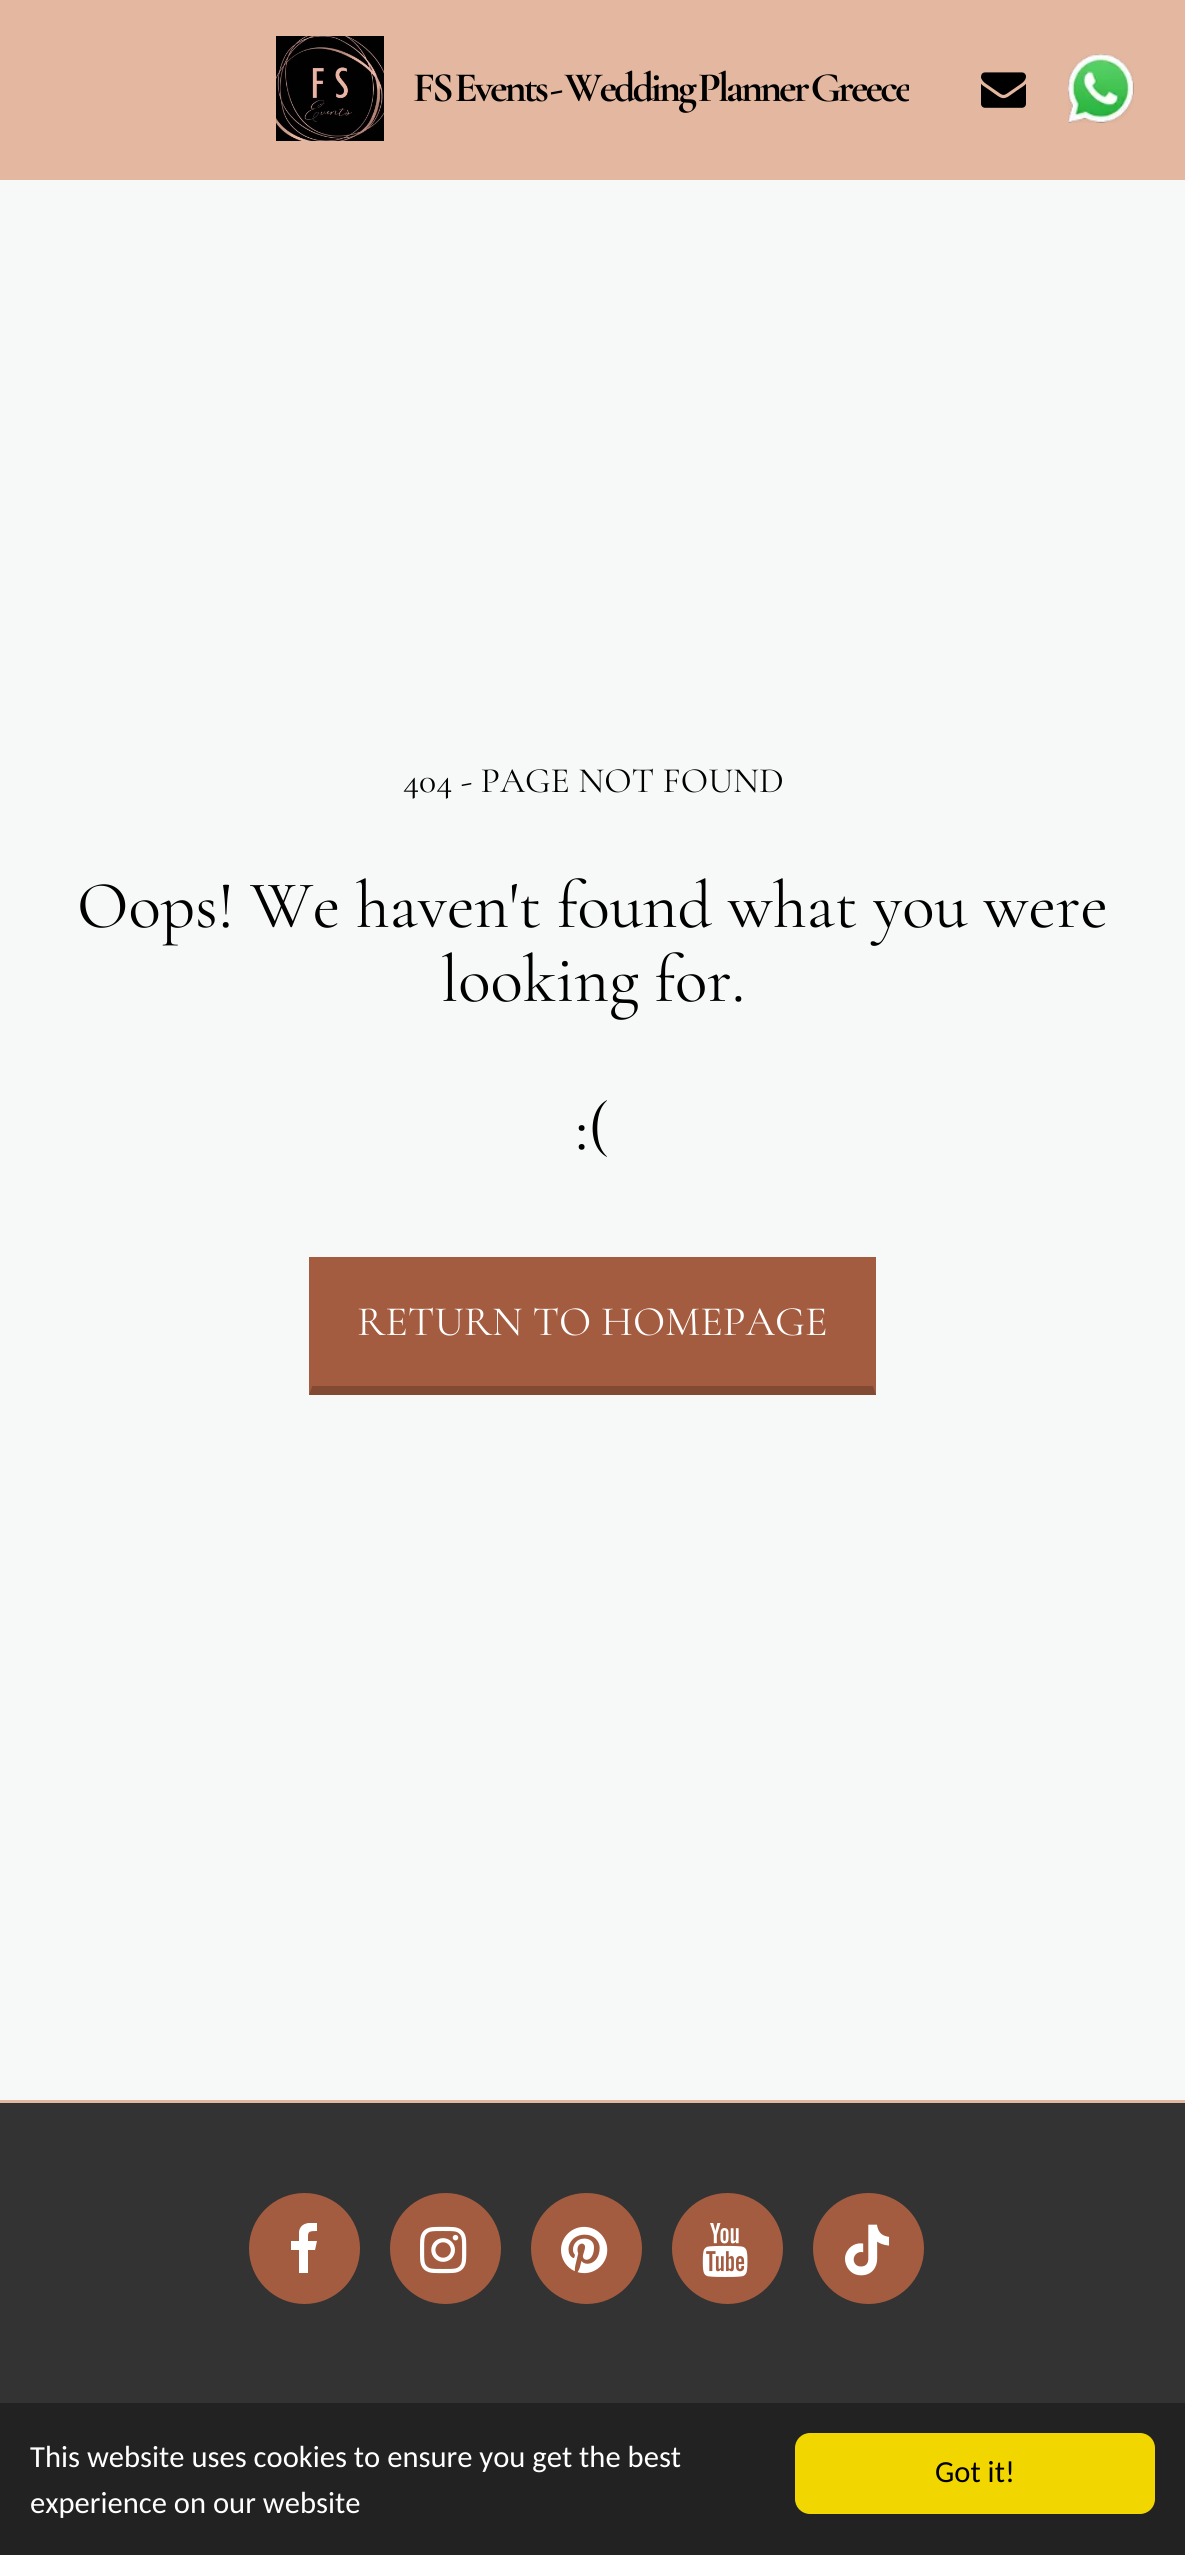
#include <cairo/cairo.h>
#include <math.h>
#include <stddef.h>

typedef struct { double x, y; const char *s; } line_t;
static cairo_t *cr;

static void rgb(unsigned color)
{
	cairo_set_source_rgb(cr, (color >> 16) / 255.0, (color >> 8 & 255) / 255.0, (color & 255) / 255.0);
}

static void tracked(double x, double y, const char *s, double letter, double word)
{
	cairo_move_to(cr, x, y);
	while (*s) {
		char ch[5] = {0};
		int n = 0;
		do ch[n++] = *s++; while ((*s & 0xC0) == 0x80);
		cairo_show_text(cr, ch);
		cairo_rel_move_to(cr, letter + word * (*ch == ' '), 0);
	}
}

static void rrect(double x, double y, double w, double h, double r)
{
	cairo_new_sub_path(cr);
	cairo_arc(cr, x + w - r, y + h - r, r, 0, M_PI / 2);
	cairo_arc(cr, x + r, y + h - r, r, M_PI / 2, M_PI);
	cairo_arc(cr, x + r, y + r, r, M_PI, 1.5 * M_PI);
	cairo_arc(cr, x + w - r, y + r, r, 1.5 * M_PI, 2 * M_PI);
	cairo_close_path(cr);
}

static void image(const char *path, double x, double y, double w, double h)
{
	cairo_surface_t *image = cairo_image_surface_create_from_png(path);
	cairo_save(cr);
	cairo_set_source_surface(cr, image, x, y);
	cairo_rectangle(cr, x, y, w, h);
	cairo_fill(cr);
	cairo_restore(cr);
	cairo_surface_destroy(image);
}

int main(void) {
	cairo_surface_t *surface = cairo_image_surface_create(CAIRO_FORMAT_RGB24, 1185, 2555);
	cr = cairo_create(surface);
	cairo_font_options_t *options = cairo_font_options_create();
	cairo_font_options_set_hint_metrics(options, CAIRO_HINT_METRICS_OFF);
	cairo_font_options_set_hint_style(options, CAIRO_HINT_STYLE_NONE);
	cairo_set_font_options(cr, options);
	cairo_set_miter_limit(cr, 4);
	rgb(0xf7f9f8);
	cairo_paint(cr);
	rgb(0xe4b7a0);
	cairo_rectangle(cr, 0, 0, 1185, 180);
	cairo_fill(cr);
	image("img/1.png", 276, 36, 108, 105);
	image("img/2.png", 981, 72, 45, 36);
	image("img/3.png", 1068, 54, 66, 69);
	rgb(0xa45c40);
	cairo_rectangle(cr, 309, 1257, 567, 138);
	cairo_fill(cr);
	rgb(0x834a33);
	cairo_new_path(cr);
	cairo_move_to(cr, 876, 1395);
	cairo_line_to(cr, 309, 1395);
	cairo_line_to(cr, 312, 1386);
	cairo_line_to(cr, 873, 1386);
	cairo_close_path(cr);
	cairo_fill(cr);
	rgb(0xa45c40);
	cairo_new_path(cr);
	cairo_move_to(cr, 309, 1395);
	cairo_line_to(cr, 309, 1257);
	cairo_line_to(cr, 312, 1260);
	cairo_line_to(cr, 312, 1386);
	cairo_close_path(cr);
	cairo_fill(cr);
	rgb(0xe4b7a0);
	cairo_rectangle(cr, 0, 2100, 1185, 3);
	cairo_fill(cr);
	rgb(0x333333);
	cairo_rectangle(cr, 0, 2103, 1185, 300);
	cairo_fill(cr);
	rgb(0xa45c40);
	cairo_arc(cr, 304.5, 2248.5, 54, 0, 2 * M_PI);
	cairo_fill_preserve(cr);
	cairo_set_line_width(cr, 3);
	cairo_stroke(cr);
	cairo_save(cr);
	cairo_rectangle(cr, 288, 2223, 30, 54);
	cairo_clip(cr);
	rgb(0xffffff);
	cairo_new_path(cr);
	cairo_move_to(cr, 317, 2223);
	cairo_line_to(cr, 317, 2231);
	cairo_curve_to(cr, 307, 2231, 308, 2232, 308, 2241);
	cairo_line_to(cr, 317, 2241);
	cairo_line_to(cr, 315, 2250);
	cairo_line_to(cr, 308, 2250);
	cairo_line_to(cr, 308, 2273);
	cairo_line_to(cr, 299, 2273);
	cairo_line_to(cr, 299, 2250);
	cairo_line_to(cr, 291, 2250);
	cairo_line_to(cr, 291, 2241);
	cairo_line_to(cr, 299, 2241);
	cairo_line_to(cr, 299, 2232);
	cairo_curve_to(cr, 300, 2223, 309, 2222, 317, 2223);
	cairo_close_path(cr);
	cairo_fill(cr);
	cairo_restore(cr);
	cairo_arc(cr, 445.5, 2248.5, 54, 0, 2 * M_PI);
	cairo_fill_preserve(cr);
	cairo_stroke(cr);
	image("img/4.png", 420, 2226, 47, 48);
	cairo_arc(cr, 586.5, 2248.5, 54, 0, 2 * M_PI);
	cairo_fill_preserve(cr);
	cairo_stroke(cr);
	image("img/5.png", 561, 2226, 47, 48);
	cairo_arc(cr, 727.5, 2248.5, 54, 0, 2 * M_PI);
	cairo_fill_preserve(cr);
	cairo_stroke(cr);
	image("img/6.png", 702, 2223, 46, 54);
	cairo_arc(cr, 868.5, 2248.5, 54, 0, 2 * M_PI);
	cairo_fill_preserve(cr);
	cairo_stroke(cr);
	image("img/7.png", 845, 2224, 45, 52);
	rgb(0x222222);
	cairo_rectangle(cr, 0, 2403, 1185, 152);
	cairo_fill(cr);
	rgb(0xf1d600);
	rrect(795, 2433, 360, 81, 15);
	cairo_fill(cr);
	cairo_save(cr);
	cairo_rectangle(cr, 402, 60, 507, 60);
	cairo_clip(cr);
	cairo_select_font_face(cr, "Cormorant Garamond", CAIRO_FONT_SLANT_NORMAL, CAIRO_FONT_WEIGHT_BOLD);
	cairo_set_font_size(cr, 42);
	rgb(0x000000);
	tracked(413, 101, "FS Events - Wedding Planner Greece", -3, -3);
	cairo_restore(cr);
	cairo_select_font_face(cr, "Cormorant Garamond", CAIRO_FONT_SLANT_NORMAL, CAIRO_FONT_WEIGHT_NORMAL);
	cairo_set_font_size(cr, 35.75);
	rgb(0x000000);
	cairo_move_to(cr, 403, 792);
	cairo_show_text(cr, "404 - PAGE NOT FOUND");
	cairo_set_font_size(cr, 67.25);
	{
		static const line_t items[] = {
			{77, 927, "Oops! We haven't found what you were"},
			{441, 1001, "looking for."},
			{575, 1149, ":("},
		};
		for (size_t i = 0; i < sizeof items / sizeof *items; i++) {
			cairo_move_to(cr, items[i].x, items[i].y);
			cairo_show_text(cr, items[i].s);
		}
	}
	cairo_set_font_size(cr, 42);
	rgb(0xffffff);
	cairo_move_to(cr, 357, 1335);
	cairo_show_text(cr, "RETURN TO HOMEPAGE");
	cairo_select_font_face(cr, "Carlito", CAIRO_FONT_SLANT_NORMAL, CAIRO_FONT_WEIGHT_NORMAL);
	cairo_set_font_size(cr, 30.6);
	cairo_move_to(cr, 30, 2467);
	cairo_show_text(cr, "This website uses cookies to ensure you get the best");
	cairo_move_to(cr, 30, 2513);
	cairo_show_text(cr, "experience on our website");
	rgb(0x000000);
	cairo_move_to(cr, 935, 2482);
	cairo_show_text(cr, "Got it!");
	cairo_surface_write_to_png(surface, "page.png");
	cairo_font_options_destroy(options);
	cairo_destroy(cr);
	cairo_surface_destroy(surface);
	return 0;
}
